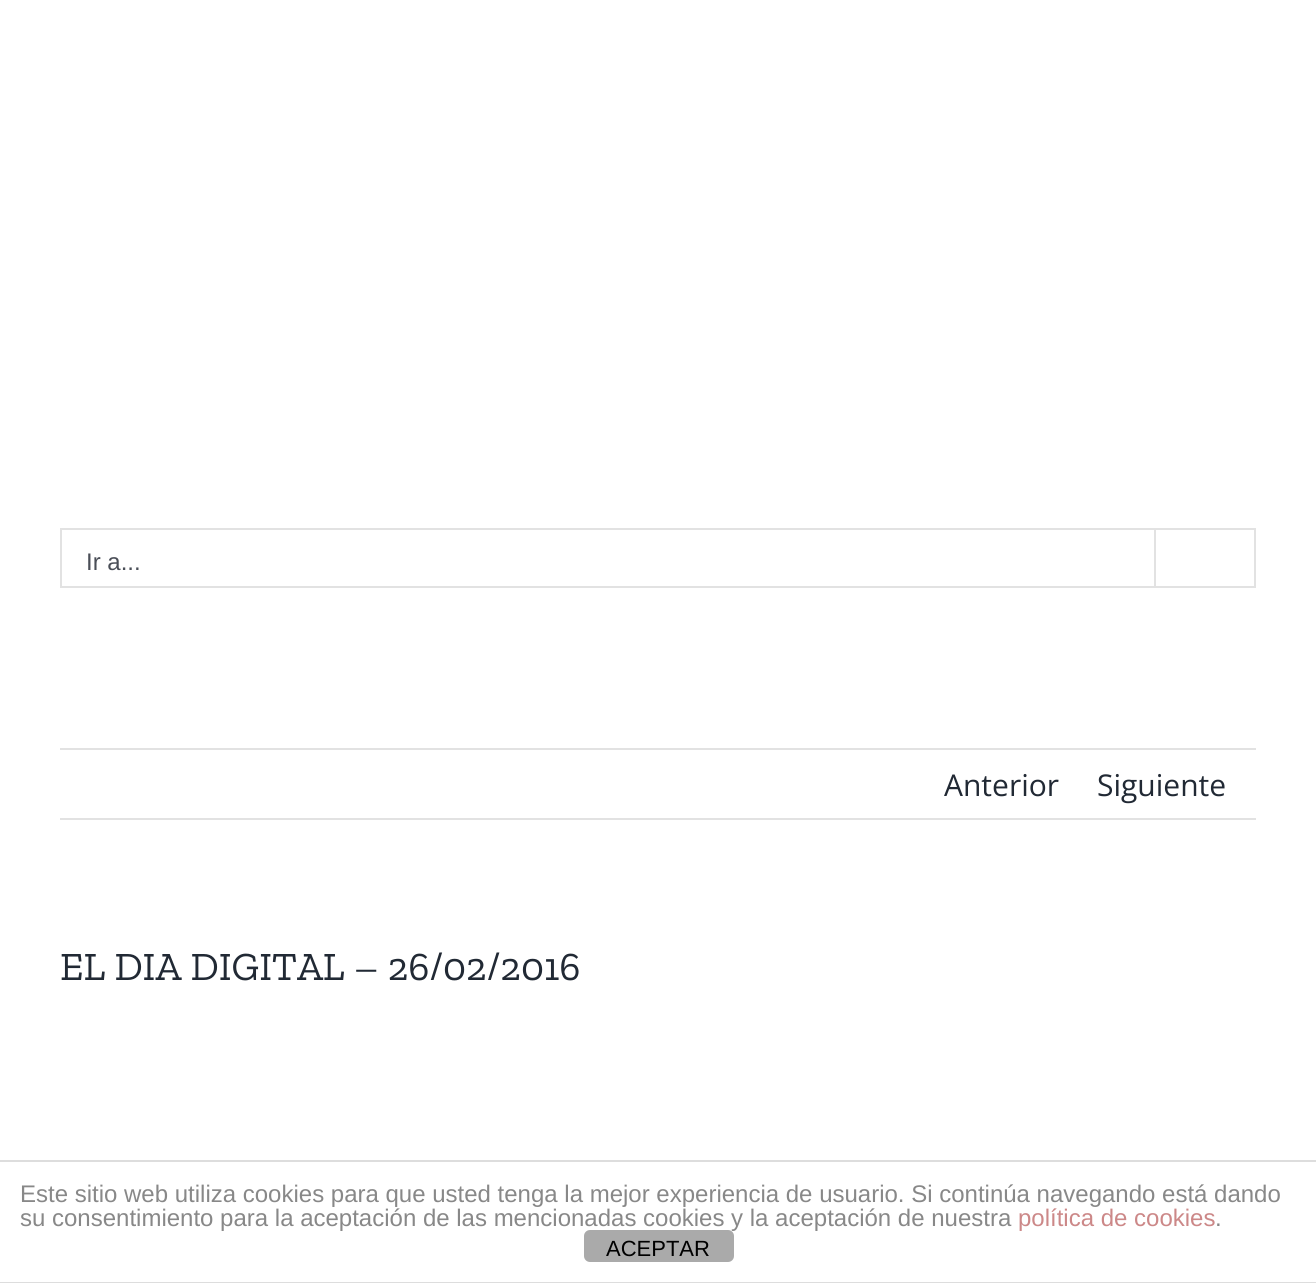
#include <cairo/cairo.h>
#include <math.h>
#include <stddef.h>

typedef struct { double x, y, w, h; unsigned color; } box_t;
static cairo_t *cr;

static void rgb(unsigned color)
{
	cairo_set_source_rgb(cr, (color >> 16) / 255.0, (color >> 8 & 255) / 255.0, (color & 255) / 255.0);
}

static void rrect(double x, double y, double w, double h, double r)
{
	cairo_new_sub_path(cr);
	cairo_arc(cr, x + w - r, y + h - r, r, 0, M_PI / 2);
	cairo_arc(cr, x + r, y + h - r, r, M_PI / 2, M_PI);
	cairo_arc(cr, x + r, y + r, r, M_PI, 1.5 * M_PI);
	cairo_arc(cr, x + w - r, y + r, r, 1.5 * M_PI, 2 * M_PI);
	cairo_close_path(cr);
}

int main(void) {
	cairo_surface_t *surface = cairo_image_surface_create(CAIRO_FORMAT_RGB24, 1316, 1283);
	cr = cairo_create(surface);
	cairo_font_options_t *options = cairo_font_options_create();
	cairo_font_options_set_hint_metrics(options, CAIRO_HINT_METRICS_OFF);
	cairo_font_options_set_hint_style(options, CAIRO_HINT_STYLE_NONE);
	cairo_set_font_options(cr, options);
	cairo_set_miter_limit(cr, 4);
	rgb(0xffffff);
	cairo_paint(cr);
	cairo_rectangle(cr, 61, 529, 1194, 58);
	rgb(0xe2e2e2);
	cairo_stroke(cr);
	{
		static const box_t items[] = {
			{1154, 530, 2, 56, 0xe2e2e2},
			{60, 748, 1196, 2, 0xe2e2e2},
			{60, 818, 1196, 2, 0xe2e2e2},
			{0, 1160, 1316, 2, 0xdddddd},
			{0, 1282, 1316, 1, 0xdddddd},
		};
		for (size_t i = 0; i < sizeof items / sizeof *items; i++) {
			rgb(items[i].color);
			cairo_rectangle(cr, items[i].x, items[i].y, items[i].w, items[i].h);
			cairo_fill(cr);
		}
	}
	rgb(0xaaaaaa);
	rrect(584, 1230, 150, 32, 6);
	cairo_fill(cr);
	cairo_select_font_face(cr, "Liberation Sans", CAIRO_FONT_SLANT_NORMAL, CAIRO_FONT_WEIGHT_NORMAL);
	cairo_set_font_size(cr, 24);
	rgb(0x4a4e57);
	cairo_move_to(cr, 86, 570);
	cairo_show_text(cr, "Ir a...");
	cairo_select_font_face(cr, "Open Sans", CAIRO_FONT_SLANT_NORMAL, CAIRO_FONT_WEIGHT_NORMAL);
	cairo_set_font_size(cr, 30);
	rgb(0x212934);
	cairo_move_to(cr, 944, 796);
	cairo_show_text(cr, "Anterior");
	cairo_move_to(cr, 1097, 796);
	cairo_show_text(cr, "Siguiente");
	cairo_select_font_face(cr, "Zilla Slab", CAIRO_FONT_SLANT_NORMAL, CAIRO_FONT_WEIGHT_NORMAL);
	cairo_set_font_size(cr, 40);
	cairo_move_to(cr, 60, 980);
	cairo_show_text(cr, "EL DIA DIGITAL – 26/02/2016");
	cairo_select_font_face(cr, "Liberation Sans", CAIRO_FONT_SLANT_NORMAL, CAIRO_FONT_WEIGHT_NORMAL);
	cairo_set_font_size(cr, 24);
	rgb(0x888888);
	cairo_move_to(cr, 20, 1202);
	cairo_show_text(cr, "Este sitio web utiliza cookies para que usted tenga la mejor experiencia de usuario. Si continúa navegando está dando");
	cairo_move_to(cr, 20, 1226);
	cairo_show_text(cr, "su consentimiento para la aceptación de las mencionadas cookies y la aceptación de nuestra");
	rgb(0xcc8888);
	cairo_move_to(cr, 1018, 1226);
	cairo_show_text(cr, "política de cookies");
	rgb(0x888888);
	cairo_move_to(cr, 1215, 1226);
	cairo_show_text(cr, ".");
	cairo_set_font_size(cr, 22);
	rgb(0x000000);
	cairo_move_to(cr, 606, 1256);
	cairo_show_text(cr, "ACEPTAR");
	cairo_surface_write_to_png(surface, "page.png");
	cairo_font_options_destroy(options);
	cairo_destroy(cr);
	cairo_surface_destroy(surface);
	return 0;
}
